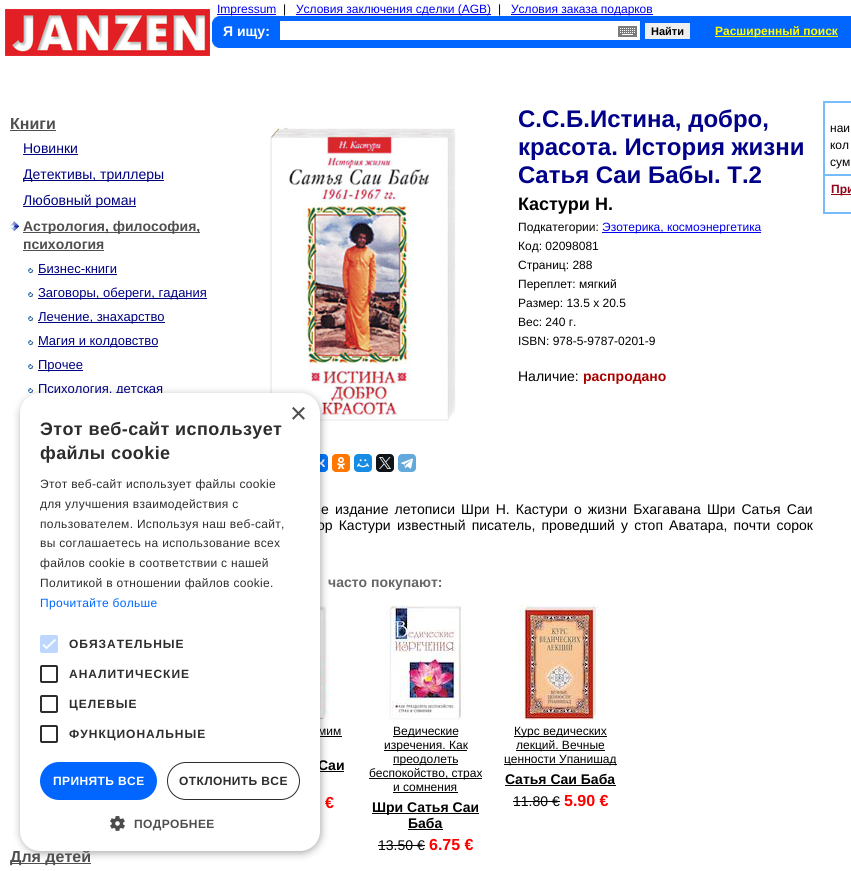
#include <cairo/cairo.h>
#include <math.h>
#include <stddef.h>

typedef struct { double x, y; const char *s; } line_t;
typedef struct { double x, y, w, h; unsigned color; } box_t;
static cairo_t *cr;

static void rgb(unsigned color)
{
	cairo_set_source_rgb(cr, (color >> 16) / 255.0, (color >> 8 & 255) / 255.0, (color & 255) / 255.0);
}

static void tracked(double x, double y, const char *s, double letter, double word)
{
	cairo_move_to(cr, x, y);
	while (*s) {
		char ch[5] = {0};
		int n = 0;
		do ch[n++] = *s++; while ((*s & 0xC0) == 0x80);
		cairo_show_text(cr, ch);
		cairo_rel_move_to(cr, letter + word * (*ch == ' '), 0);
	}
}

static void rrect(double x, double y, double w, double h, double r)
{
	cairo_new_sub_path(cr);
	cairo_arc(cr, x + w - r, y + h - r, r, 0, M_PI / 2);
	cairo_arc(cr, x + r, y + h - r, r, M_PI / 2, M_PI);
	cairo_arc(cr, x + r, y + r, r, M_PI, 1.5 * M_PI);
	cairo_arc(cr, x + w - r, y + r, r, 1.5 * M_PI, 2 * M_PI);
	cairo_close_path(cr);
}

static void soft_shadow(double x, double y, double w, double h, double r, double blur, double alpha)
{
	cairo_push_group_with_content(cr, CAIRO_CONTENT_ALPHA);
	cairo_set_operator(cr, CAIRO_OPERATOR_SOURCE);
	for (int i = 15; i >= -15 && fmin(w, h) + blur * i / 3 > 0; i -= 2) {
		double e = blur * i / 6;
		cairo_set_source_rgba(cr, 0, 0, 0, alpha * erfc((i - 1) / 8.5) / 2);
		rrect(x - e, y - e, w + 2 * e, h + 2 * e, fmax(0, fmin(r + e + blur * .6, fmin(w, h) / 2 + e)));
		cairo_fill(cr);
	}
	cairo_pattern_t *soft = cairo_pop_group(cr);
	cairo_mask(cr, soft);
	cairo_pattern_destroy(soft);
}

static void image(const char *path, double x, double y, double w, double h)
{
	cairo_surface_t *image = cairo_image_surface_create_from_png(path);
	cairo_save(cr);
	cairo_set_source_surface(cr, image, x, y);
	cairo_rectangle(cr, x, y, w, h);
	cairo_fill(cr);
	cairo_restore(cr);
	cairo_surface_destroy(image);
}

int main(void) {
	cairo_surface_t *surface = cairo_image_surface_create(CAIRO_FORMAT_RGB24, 851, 871);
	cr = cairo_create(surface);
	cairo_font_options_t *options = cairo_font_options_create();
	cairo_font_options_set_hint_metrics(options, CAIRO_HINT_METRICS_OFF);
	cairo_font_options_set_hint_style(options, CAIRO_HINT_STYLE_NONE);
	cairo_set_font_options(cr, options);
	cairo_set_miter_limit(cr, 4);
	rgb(0xffffff);
	cairo_paint(cr);
	image("img/1.png", 5, 9, 205, 47);
	{
		static const box_t items[] = {
			{217, 14, 59, 1, 0x0000ee},
			{296, 14, 195, 1, 0x0000ee},
			{511, 14, 142, 1, 0x0000ee},
		};
		for (size_t i = 0; i < sizeof items / sizeof *items; i++) {
			rgb(items[i].color);
			cairo_rectangle(cr, items[i].x, items[i].y, items[i].w, items[i].h);
			cairo_fill(cr);
		}
	}
	rgb(0x0066ff);
	rrect(212.5, 16.5, 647, 31, 7.5);
	cairo_fill_preserve(cr);
	cairo_set_line_width(cr, 1);
	cairo_stroke(cr);
	rgb(0xffffff);
	cairo_rectangle(cr, 280, 21, 360, 19);
	cairo_fill(cr);
	image("img/2.png", 618, 26, 19, 11);
	{
		static const box_t items[] = {
			{645, 23, 45, 16, 0xefefef},
			{715, 36, 123, 1, 0xffff00},
			{10, 130, 46, 1, 0x4f4f4f},
			{23, 154, 55, 1, 0x000080},
			{23, 180, 141, 1, 0x000080},
			{23, 206, 113, 1, 0x000080},
		};
		for (size_t i = 0; i < sizeof items / sizeof *items; i++) {
			rgb(items[i].color);
			cairo_rectangle(cr, items[i].x, items[i].y, items[i].w, items[i].h);
			cairo_fill(cr);
		}
	}
	image("img/3.png", 9, 221, 10, 10);
	rgb(0x4f4f4f);
	cairo_rectangle(cr, 23, 232, 177, 1);
	cairo_fill(cr);
	cairo_rectangle(cr, 23, 250, 81, 1);
	cairo_fill(cr);
	image("img/4.png", 28, 268, 5, 5);
	rgb(0x000080);
	cairo_rectangle(cr, 38, 274, 79, 1);
	cairo_fill(cr);
	image("img/4.png", 28, 292, 5, 5);
	cairo_rectangle(cr, 38, 298, 169, 1);
	cairo_fill(cr);
	image("img/4.png", 28, 316, 5, 5);
	cairo_rectangle(cr, 38, 322, 127, 1);
	cairo_fill(cr);
	image("img/4.png", 28, 340, 5, 5);
	cairo_rectangle(cr, 38, 346, 120, 1);
	cairo_fill(cr);
	image("img/4.png", 28, 364, 5, 5);
	cairo_rectangle(cr, 38, 370, 45, 1);
	cairo_fill(cr);
	image("img/4.png", 28, 388, 5, 5);
	rgb(0x4f4f4f);
	cairo_rectangle(cr, 10, 863, 81, 1);
	cairo_fill(cr);
	image("img/5.png", 267, 124, 189, 297);
	rgb(0x0077ff);
	rrect(310, 454, 18, 18, 4);
	cairo_fill(cr);
	image("img/6.png", 320, 459, 5, 8);
	rgb(0xff7700);
	rrect(332, 454, 18, 18, 4);
	cairo_fill(cr);
	image("img/7.png", 337, 457, 8, 12);
	rgb(0x168de2);
	rrect(354, 454, 18, 18, 4);
	cairo_fill(cr);
	image("img/8.png", 357, 459, 12, 9);
	rgb(0x0f1419);
	rrect(376, 454, 18, 18, 4);
	cairo_fill(cr);
	image("img/9.png", 379, 457, 12, 12);
	rgb(0x64a9dc);
	rrect(398, 454, 18, 18, 4);
	cairo_fill(cr);
	image("img/10.png", 401, 458, 12, 11);
	rgb(0x0000ee);
	cairo_rectangle(cr, 602, 232, 159, 1);
	cairo_fill(cr);
	image("img/11.png", 320, 605, 9, 115);
	rgb(0x000000);
	cairo_rectangle(cr, 320, 736, 22, 1);
	cairo_fill(cr);
	cairo_rectangle(cr, 320, 771, 24, 1);
	cairo_fill(cr);
	image("img/12.png", 385, 605, 79, 115);
	{
		static const box_t items[] = {
			{393, 736, 65, 1, 0x000000},
			{384, 750, 83, 1, 0x000000},
			{393, 764, 65, 1, 0x000000},
			{369, 778, 113, 1, 0x000000},
			{393, 792, 65, 1, 0x000000},
			{372, 813, 107, 1, 0x000000},
			{408, 829, 35, 1, 0x000000},
			{378, 845, 47, 1, 0x000000},
		};
		for (size_t i = 0; i < sizeof items / sizeof *items; i++) {
			rgb(items[i].color);
			cairo_rectangle(cr, items[i].x, items[i].y, items[i].w, items[i].h);
			cairo_fill(cr);
		}
	}
	image("img/13.png", 519, 605, 80, 115);
	{
		static const box_t items[] = {
			{514, 736, 93, 1, 0x000000},
			{516, 750, 89, 1, 0x000000},
			{504, 764, 113, 1, 0x000000},
			{505, 785, 111, 1, 0x000000},
			{513, 801, 47, 1, 0x000000},
		};
		for (size_t i = 0; i < sizeof items / sizeof *items; i++) {
			rgb(items[i].color);
			cairo_rectangle(cr, items[i].x, items[i].y, items[i].w, items[i].h);
			cairo_fill(cr);
		}
	}
	cairo_rectangle(cr, 824, 102, 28, 111);
	rgb(0x77bbff);
	cairo_set_line_width(cr, 2);
	cairo_stroke(cr);
	cairo_rectangle(cr, 825, 174, 26, 2);
	cairo_fill(cr);
	rgb(0x92051b);
	cairo_rectangle(cr, 831, 194, 20, 1);
	cairo_fill(cr);
	rgb(0x000000);
	soft_shadow(21, 395, 300, 458, 20, 4, 0.35);
	cairo_select_font_face(cr, "Liberation Sans", CAIRO_FONT_SLANT_NORMAL, CAIRO_FONT_WEIGHT_NORMAL);
	cairo_set_font_size(cr, 12);
	rgb(0x0000ee);
	cairo_move_to(cr, 217, 13);
	cairo_show_text(cr, "Impressum");
	rgb(0x000000);
	cairo_move_to(cr, 283, 13);
	cairo_show_text(cr, "|");
	rgb(0x0000ee);
	cairo_move_to(cr, 296, 13);
	cairo_show_text(cr, "Условия заключения сделки (AGB)");
	rgb(0x000000);
	cairo_move_to(cr, 498, 13);
	cairo_show_text(cr, "|");
	rgb(0x0000ee);
	cairo_move_to(cr, 511, 13);
	cairo_show_text(cr, "Условия заказа подарков");
	cairo_select_font_face(cr, "Liberation Sans", CAIRO_FONT_SLANT_NORMAL, CAIRO_FONT_WEIGHT_BOLD);
	cairo_set_font_size(cr, 14);
	rgb(0xffffff);
	cairo_move_to(cr, 223, 36);
	cairo_show_text(cr, "Я ищу:");
	cairo_set_font_size(cr, 11);
	rgb(0x000000);
	cairo_move_to(cr, 651, 35);
	cairo_show_text(cr, "Найти");
	cairo_set_font_size(cr, 12);
	rgb(0xffff00);
	cairo_move_to(cr, 715, 35);
	cairo_show_text(cr, "Расширенный поиск");
	cairo_set_font_size(cr, 16);
	rgb(0x4f4f4f);
	cairo_move_to(cr, 10, 129);
	cairo_show_text(cr, "Книги");
	cairo_select_font_face(cr, "Liberation Sans", CAIRO_FONT_SLANT_NORMAL, CAIRO_FONT_WEIGHT_NORMAL);
	cairo_set_font_size(cr, 14);
	rgb(0x000080);
	{
		static const line_t items[] = {
			{23, 153, "Новинки"},
			{23, 179, "Детективы, триллеры"},
			{23, 205, "Любовный роман"},
		};
		for (size_t i = 0; i < sizeof items / sizeof *items; i++) {
			cairo_move_to(cr, items[i].x, items[i].y);
			cairo_show_text(cr, items[i].s);
		}
	}
	cairo_select_font_face(cr, "Liberation Sans", CAIRO_FONT_SLANT_NORMAL, CAIRO_FONT_WEIGHT_BOLD);
	rgb(0x4f4f4f);
	cairo_move_to(cr, 23, 231);
	cairo_show_text(cr, "Астрология, философия,");
	cairo_move_to(cr, 23, 249);
	cairo_show_text(cr, "психология");
	cairo_select_font_face(cr, "Liberation Sans", CAIRO_FONT_SLANT_NORMAL, CAIRO_FONT_WEIGHT_NORMAL);
	cairo_set_font_size(cr, 13);
	rgb(0x000080);
	{
		static const line_t items[] = {
			{38, 273, "Бизнес-книги"},
			{38, 297, "Заговоры, обереги, гадания"},
			{38, 321, "Лечение, знахарство"},
			{38, 345, "Магия и колдовство"},
			{38, 369, "Прочее"},
			{38, 393, "Психология, детская"},
		};
		for (size_t i = 0; i < sizeof items / sizeof *items; i++) {
			cairo_move_to(cr, items[i].x, items[i].y);
			cairo_show_text(cr, items[i].s);
		}
	}
	cairo_select_font_face(cr, "Liberation Sans", CAIRO_FONT_SLANT_NORMAL, CAIRO_FONT_WEIGHT_BOLD);
	cairo_set_font_size(cr, 16);
	rgb(0x4f4f4f);
	cairo_move_to(cr, 10, 862);
	cairo_show_text(cr, "Для детей");
	cairo_set_font_size(cr, 24);
	rgb(0x000088);
	{
		static const line_t items[] = {
			{518, 127, "С.С.Б.Истина, добро,"},
			{518, 155, "красота. История жизни"},
			{518, 183, "Сатья Саи Бабы. Т.2"},
		};
		for (size_t i = 0; i < sizeof items / sizeof *items; i++) {
			cairo_move_to(cr, items[i].x, items[i].y);
			cairo_show_text(cr, items[i].s);
		}
	}
	cairo_set_font_size(cr, 18);
	rgb(0x000000);
	cairo_move_to(cr, 518, 210);
	cairo_show_text(cr, "Кастури Н.");
	cairo_select_font_face(cr, "Liberation Sans", CAIRO_FONT_SLANT_NORMAL, CAIRO_FONT_WEIGHT_NORMAL);
	cairo_set_font_size(cr, 12);
	cairo_move_to(cr, 518, 231);
	cairo_show_text(cr, "Подкатегории:");
	rgb(0x0000ee);
	cairo_move_to(cr, 602, 231);
	cairo_show_text(cr, "Эзотерика, космоэнергетика");
	rgb(0x000000);
	{
		static const line_t items[] = {
			{518, 250, "Код: 02098081"},
			{518, 269, "Страниц: 288"},
			{518, 288, "Переплет: мягкий"},
			{518, 307, "Размер: 13.5 x 20.5"},
			{518, 326, "Вес: 240 г."},
			{518, 345, "ISBN: 978-5-9787-0201-9"},
		};
		for (size_t i = 0; i < sizeof items / sizeof *items; i++) {
			cairo_move_to(cr, items[i].x, items[i].y);
			cairo_show_text(cr, items[i].s);
		}
	}
	cairo_set_font_size(cr, 14);
	cairo_move_to(cr, 518, 381);
	cairo_show_text(cr, "Наличие:");
	cairo_select_font_face(cr, "Liberation Sans", CAIRO_FONT_SLANT_NORMAL, CAIRO_FONT_WEIGHT_BOLD);
	rgb(0xaa0000);
	cairo_move_to(cr, 583, 381);
	cairo_show_text(cr, "распродано");
	cairo_select_font_face(cr, "Liberation Sans", CAIRO_FONT_SLANT_NORMAL, CAIRO_FONT_WEIGHT_NORMAL);
	rgb(0x000000);
	{
		static const line_t items[] = {
			{321, 514, "е издание летописи Шри Н. Кастури о жизни Бхагавана Шри Сатья Саи"},
			{317, 530, "ор Кастури"},
			{397, 530, "известный писатель, проведший у стоп Аватара, почти сорок"},
		};
		for (size_t i = 0; i < sizeof items / sizeof *items; i++) {
			tracked(items[i].x, items[i].y, items[i].s, 0, 2.25);
		}
	}
	cairo_select_font_face(cr, "Liberation Sans", CAIRO_FONT_SLANT_NORMAL, CAIRO_FONT_WEIGHT_BOLD);
	rgb(0x666666);
	cairo_move_to(cr, 328, 587);
	cairo_show_text(cr, "часто покупают:");
	cairo_select_font_face(cr, "Liberation Sans", CAIRO_FONT_SLANT_NORMAL, CAIRO_FONT_WEIGHT_NORMAL);
	cairo_set_font_size(cr, 12);
	rgb(0x000000);
	cairo_move_to(cr, 318, 735);
	cairo_show_text(cr, "мим");
	cairo_select_font_face(cr, "Liberation Sans", CAIRO_FONT_SLANT_NORMAL, CAIRO_FONT_WEIGHT_BOLD);
	cairo_set_font_size(cr, 14);
	cairo_move_to(cr, 318, 770);
	cairo_show_text(cr, "Саи");
	cairo_set_font_size(cr, 16);
	rgb(0xff0000);
	cairo_move_to(cr, 325, 808);
	cairo_show_text(cr, "€");
	cairo_select_font_face(cr, "Liberation Sans", CAIRO_FONT_SLANT_NORMAL, CAIRO_FONT_WEIGHT_NORMAL);
	cairo_set_font_size(cr, 12);
	rgb(0x000000);
	{
		static const line_t items[] = {
			{393, 735, "Ведические"},
			{384, 749, "изречения. Как"},
			{393, 763, "преодолеть"},
			{369, 777, "беспокойство, страх"},
			{393, 791, "и сомнения"},
		};
		for (size_t i = 0; i < sizeof items / sizeof *items; i++) {
			cairo_move_to(cr, items[i].x, items[i].y);
			cairo_show_text(cr, items[i].s);
		}
	}
	cairo_select_font_face(cr, "Liberation Sans", CAIRO_FONT_SLANT_NORMAL, CAIRO_FONT_WEIGHT_BOLD);
	cairo_set_font_size(cr, 14);
	cairo_move_to(cr, 372, 812);
	cairo_show_text(cr, "Шри Сатья Саи");
	cairo_move_to(cr, 408, 828);
	cairo_show_text(cr, "Баба");
	cairo_select_font_face(cr, "Liberation Sans", CAIRO_FONT_SLANT_NORMAL, CAIRO_FONT_WEIGHT_NORMAL);
	cairo_move_to(cr, 378, 850);
	cairo_show_text(cr, "13.50 €");
	cairo_select_font_face(cr, "Liberation Sans", CAIRO_FONT_SLANT_NORMAL, CAIRO_FONT_WEIGHT_BOLD);
	cairo_set_font_size(cr, 16);
	rgb(0xff0000);
	cairo_move_to(cr, 429, 850);
	cairo_show_text(cr, "6.75 €");
	cairo_select_font_face(cr, "Liberation Sans", CAIRO_FONT_SLANT_NORMAL, CAIRO_FONT_WEIGHT_NORMAL);
	cairo_set_font_size(cr, 12);
	rgb(0x000000);
	{
		static const line_t items[] = {
			{514, 735, "Курс ведических"},
			{516, 749, "лекций. Вечные"},
			{504, 763, "ценности Упанишад"},
		};
		for (size_t i = 0; i < sizeof items / sizeof *items; i++) {
			cairo_move_to(cr, items[i].x, items[i].y);
			cairo_show_text(cr, items[i].s);
		}
	}
	cairo_select_font_face(cr, "Liberation Sans", CAIRO_FONT_SLANT_NORMAL, CAIRO_FONT_WEIGHT_BOLD);
	cairo_set_font_size(cr, 14);
	cairo_move_to(cr, 505, 784);
	cairo_show_text(cr, "Сатья Саи Баба");
	cairo_select_font_face(cr, "Liberation Sans", CAIRO_FONT_SLANT_NORMAL, CAIRO_FONT_WEIGHT_NORMAL);
	cairo_move_to(cr, 513, 806);
	cairo_show_text(cr, "11.80 €");
	cairo_select_font_face(cr, "Liberation Sans", CAIRO_FONT_SLANT_NORMAL, CAIRO_FONT_WEIGHT_BOLD);
	cairo_set_font_size(cr, 16);
	rgb(0xff0000);
	cairo_move_to(cr, 564, 806);
	cairo_show_text(cr, "5.90 €");
	cairo_select_font_face(cr, "Liberation Sans", CAIRO_FONT_SLANT_NORMAL, CAIRO_FONT_WEIGHT_NORMAL);
	cairo_set_font_size(cr, 12);
	rgb(0x000000);
	{
		static const line_t items[] = {
			{830, 132, "наи"},
			{830, 149, "кол"},
			{830, 166, "сум"},
		};
		for (size_t i = 0; i < sizeof items / sizeof *items; i++) {
			cairo_move_to(cr, items[i].x, items[i].y);
			cairo_show_text(cr, items[i].s);
		}
	}
	cairo_select_font_face(cr, "Liberation Sans", CAIRO_FONT_SLANT_NORMAL, CAIRO_FONT_WEIGHT_BOLD);
	rgb(0x92051b);
	cairo_move_to(cr, 831, 193);
	cairo_show_text(cr, "При");
	rgb(0xffffff);
	rrect(20, 393, 300, 458, 20);
	cairo_fill(cr);
	cairo_select_font_face(cr, "Liberation Sans", CAIRO_FONT_SLANT_NORMAL, CAIRO_FONT_WEIGHT_NORMAL);
	cairo_set_font_size(cr, 29);
	rgb(0x4f4f4f);
	cairo_move_to(cr, 290, 423);
	cairo_show_text(cr, "×");
	cairo_select_font_face(cr, "Liberation Sans", CAIRO_FONT_SLANT_NORMAL, CAIRO_FONT_WEIGHT_BOLD);
	cairo_set_font_size(cr, 18);
	rgb(0x2d2d2d);
	tracked(40, 435, "Этот веб-сайт использует", 0.4, 0);
	tracked(40, 459, "файлы cookie", 0.4, 0);
	cairo_select_font_face(cr, "Liberation Sans", CAIRO_FONT_SLANT_NORMAL, CAIRO_FONT_WEIGHT_NORMAL);
	cairo_set_font_size(cr, 12);
	{
		static const line_t items[] = {
			{40, 488, "Этот веб-сайт использует файлы cookie"},
			{40, 508, "для улучшения взаимодействия с"},
			{40, 528, "пользователем. Используя наш веб-сайт,"},
			{40, 547, "вы соглашаетесь на использование всех"},
			{40, 567, "файлов cookie в соответствии с нашей"},
			{40, 587, "Политикой в отношении файлов cookie."},
		};
		for (size_t i = 0; i < sizeof items / sizeof *items; i++) {
			tracked(items[i].x, items[i].y, items[i].s, 0.3, 0);
		}
	}
	rgb(0x0066ff);
	tracked(40, 607, "Прочитайте больше", 0.3, 0);
	rgb(0xbdd7ff);
	rrect(40, 635, 18, 18, 2);
	cairo_fill(cr);
	cairo_new_path(cr);
	cairo_move_to(cr, 43, 644.5);
	cairo_line_to(cr, 46.5, 648);
	cairo_line_to(cr, 55.5, 639.5);
	rgb(0xffffff);
	cairo_set_line_width(cr, 1.8);
	cairo_stroke(cr);
	cairo_select_font_face(cr, "Liberation Sans", CAIRO_FONT_SLANT_NORMAL, CAIRO_FONT_WEIGHT_BOLD);
	rgb(0x2d2d2d);
	tracked(69, 648, "ОБЯЗАТЕЛЬНЫЕ", 1, 0);
	rrect(41, 666, 16, 16, 1);
	cairo_set_line_width(cr, 2);
	cairo_stroke(cr);
	tracked(69, 678, "АНАЛИТИЧЕСКИЕ", 1, 0);
	rrect(41, 696, 16, 16, 1);
	cairo_stroke(cr);
	tracked(69, 708, "ЦЕЛЕВЫЕ", 1, 0);
	rrect(41, 726, 16, 16, 1);
	cairo_stroke(cr);
	tracked(69, 738, "ФУНКЦИОНАЛЬНЫЕ", 1, 0);
	rgb(0x0066ff);
	rrect(40, 762, 117, 38, 19);
	cairo_fill(cr);
	rgb(0xffffff);
	tracked(53, 785, "ПРИНЯТЬ ВСЕ", 0.4, 0);
	rrect(167.5, 762.5, 132, 37, 18.5);
	rgb(0x2d2d2d);
	cairo_set_line_width(cr, 1);
	cairo_stroke(cr);
	tracked(179, 785, "ОТКЛОНИТЬ ВСЕ", 0.4, 0);
	image("img/14.png", 110, 816, 15, 15);
	rgb(0x4f4f4f);
	tracked(134, 828, "ПОДРОБНЕЕ", 0.4, 0);
	cairo_surface_write_to_png(surface, "page.png");
	cairo_font_options_destroy(options);
	cairo_destroy(cr);
	cairo_surface_destroy(surface);
	return 0;
}
